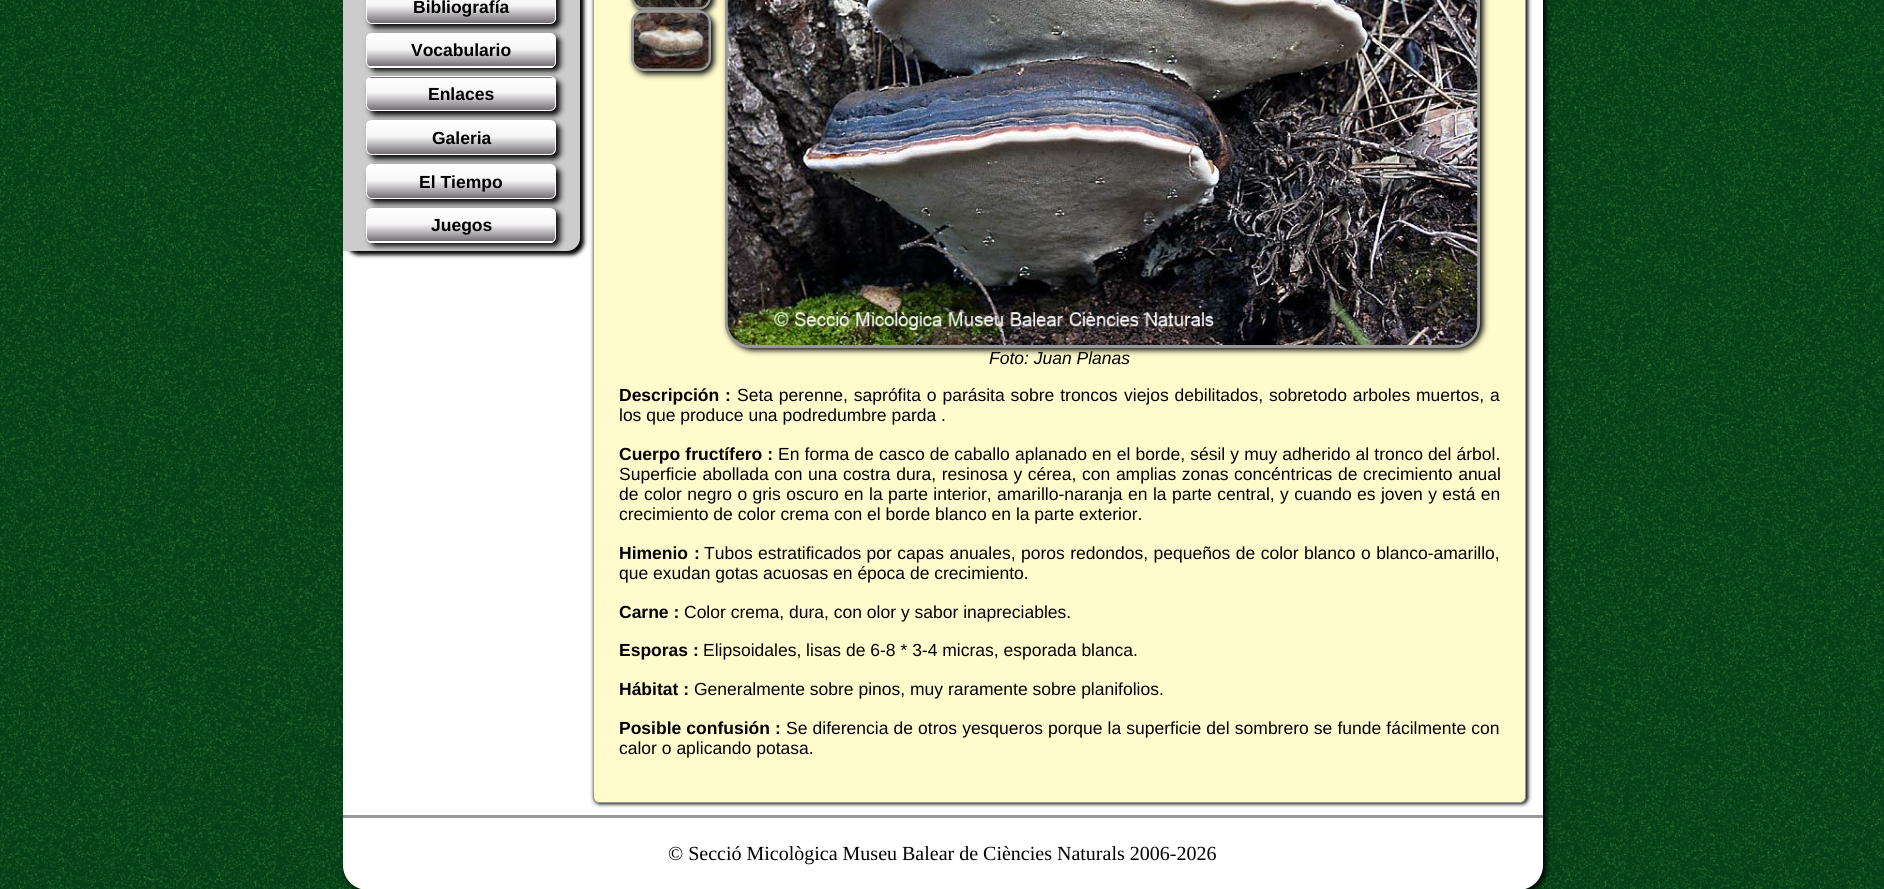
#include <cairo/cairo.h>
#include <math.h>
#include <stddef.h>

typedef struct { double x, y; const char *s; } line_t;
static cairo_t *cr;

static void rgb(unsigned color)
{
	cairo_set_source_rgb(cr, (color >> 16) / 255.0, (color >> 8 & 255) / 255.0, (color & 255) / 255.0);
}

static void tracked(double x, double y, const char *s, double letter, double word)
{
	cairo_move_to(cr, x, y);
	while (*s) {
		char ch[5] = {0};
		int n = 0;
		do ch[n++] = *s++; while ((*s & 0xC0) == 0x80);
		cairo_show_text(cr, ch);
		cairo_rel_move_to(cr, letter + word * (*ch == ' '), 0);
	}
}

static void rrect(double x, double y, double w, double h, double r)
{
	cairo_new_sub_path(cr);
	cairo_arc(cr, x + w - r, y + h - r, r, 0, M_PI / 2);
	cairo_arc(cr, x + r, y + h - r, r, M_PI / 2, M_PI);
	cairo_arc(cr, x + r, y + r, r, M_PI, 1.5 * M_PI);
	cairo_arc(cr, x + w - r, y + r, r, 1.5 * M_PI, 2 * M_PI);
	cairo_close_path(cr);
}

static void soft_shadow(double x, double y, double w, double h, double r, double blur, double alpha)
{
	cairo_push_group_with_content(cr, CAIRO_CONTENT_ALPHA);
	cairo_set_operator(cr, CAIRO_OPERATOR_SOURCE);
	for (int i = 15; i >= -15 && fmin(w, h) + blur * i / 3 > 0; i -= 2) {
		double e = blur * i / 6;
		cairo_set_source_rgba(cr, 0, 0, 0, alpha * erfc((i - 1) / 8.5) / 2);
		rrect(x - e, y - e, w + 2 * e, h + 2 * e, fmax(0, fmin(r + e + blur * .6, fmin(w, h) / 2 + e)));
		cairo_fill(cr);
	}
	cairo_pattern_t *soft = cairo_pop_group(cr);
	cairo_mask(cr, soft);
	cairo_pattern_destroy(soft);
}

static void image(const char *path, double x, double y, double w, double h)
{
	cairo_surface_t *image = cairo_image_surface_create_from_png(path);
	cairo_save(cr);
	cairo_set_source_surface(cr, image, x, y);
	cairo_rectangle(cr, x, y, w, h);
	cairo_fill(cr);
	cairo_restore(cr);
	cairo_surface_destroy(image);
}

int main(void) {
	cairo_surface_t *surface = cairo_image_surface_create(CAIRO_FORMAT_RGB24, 1884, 889);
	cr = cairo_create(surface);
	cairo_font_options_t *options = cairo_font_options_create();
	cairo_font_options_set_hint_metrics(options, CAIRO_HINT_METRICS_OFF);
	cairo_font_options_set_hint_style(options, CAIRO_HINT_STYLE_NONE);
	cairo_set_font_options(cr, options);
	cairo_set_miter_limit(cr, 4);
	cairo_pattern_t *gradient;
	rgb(0xffffff);
	cairo_paint(cr);
	image("img/1.png", 0, 0, 1884, 889);
	rgb(0x000000);
	soft_shadow(346, -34, 1200, 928, 25, 3, 1);
	rgb(0xffffff);
	cairo_new_path(cr);
	cairo_move_to(cr, 343, -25);
	cairo_line_to(cr, 1543, -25);
	cairo_line_to(cr, 1543, 865);
	cairo_curve_to(cr, 1543, 879, 1532, 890, 1518, 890);
	cairo_line_to(cr, 368, 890);
	cairo_curve_to(cr, 354, 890, 343, 879, 343, 865);
	cairo_close_path(cr);
	cairo_fill(cr);
	rgb(0x000000);
	soft_shadow(346, -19, 238, 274, 13, 2, 1);
	rgb(0xcccccc);
	cairo_new_path(cr);
	cairo_move_to(cr, 343, -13);
	cairo_line_to(cr, 580, -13);
	cairo_line_to(cr, 580, 238);
	cairo_curve_to(cr, 580, 245, 574, 251, 567, 251);
	cairo_line_to(cr, 343, 251);
	cairo_close_path(cr);
	cairo_fill(cr);
	rgb(0x000000);
	soft_shadow(370, -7, 190, 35, 6, 3, 1);
	cairo_save(cr);
	rrect(366, -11, 190, 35, 6);
	cairo_clip(cr);
	gradient = cairo_pattern_create_linear(461, -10, 461, 23);
	cairo_pattern_add_color_stop_rgba(gradient, 0, 1, 1, 1, 1);
	cairo_pattern_add_color_stop_rgba(gradient, 0.31, 0.976, 0.976, 0.976, 1);
	cairo_pattern_add_color_stop_rgba(gradient, 0.47, 0.965, 0.965, 0.965, 1);
	cairo_pattern_add_color_stop_rgba(gradient, 1, 0.451, 0.431, 0.451, 1);
	cairo_set_source(cr, gradient);
	cairo_pattern_destroy(gradient);
	cairo_rectangle(cr, 366, 0, 190, 23);
	cairo_fill(cr);
	cairo_restore(cr);
	rrect(366.5, -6.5, 189, 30, 5.5);
	rgb(0xffffff);
	cairo_set_line_width(cr, 1);
	cairo_stroke(cr);
	rgb(0x000000);
	soft_shadow(370, 36, 190, 35, 6, 3, 1);
	cairo_save(cr);
	rrect(366, 33, 190, 35, 6);
	cairo_clip(cr);
	gradient = cairo_pattern_create_linear(461, 34, 461, 66);
	cairo_pattern_add_color_stop_rgba(gradient, 0, 1, 1, 1, 1);
	cairo_pattern_add_color_stop_rgba(gradient, 0.31, 0.976, 0.976, 0.976, 1);
	cairo_pattern_add_color_stop_rgba(gradient, 0.47, 0.965, 0.965, 0.965, 1);
	cairo_pattern_add_color_stop_rgba(gradient, 1, 0.451, 0.431, 0.451, 1);
	cairo_set_source(cr, gradient);
	cairo_pattern_destroy(gradient);
	cairo_rectangle(cr, 366, 34, 190, 32);
	cairo_fill(cr);
	gradient = cairo_pattern_create_linear(461, 66, 461, 99);
	cairo_pattern_add_color_stop_rgba(gradient, 0, 1, 1, 1, 1);
	cairo_pattern_add_color_stop_rgba(gradient, 0.31, 0.976, 0.976, 0.976, 1);
	cairo_pattern_add_color_stop_rgba(gradient, 0.47, 0.965, 0.965, 0.965, 1);
	cairo_pattern_add_color_stop_rgba(gradient, 1, 0.451, 0.431, 0.451, 1);
	cairo_set_source(cr, gradient);
	cairo_pattern_destroy(gradient);
	cairo_rectangle(cr, 366, 66, 190, 2);
	cairo_fill(cr);
	cairo_restore(cr);
	rrect(366.5, 33.5, 189, 34, 5.5);
	rgb(0xffffff);
	cairo_stroke(cr);
	rgb(0x000000);
	soft_shadow(370, 80, 190, 35, 6, 3, 1);
	cairo_save(cr);
	rrect(366, 76, 190, 35, 6);
	cairo_clip(cr);
	gradient = cairo_pattern_create_linear(461, 45, 461, 78);
	cairo_pattern_add_color_stop_rgba(gradient, 0, 1, 1, 1, 1);
	cairo_pattern_add_color_stop_rgba(gradient, 0.31, 0.976, 0.976, 0.976, 1);
	cairo_pattern_add_color_stop_rgba(gradient, 0.47, 0.965, 0.965, 0.965, 1);
	cairo_pattern_add_color_stop_rgba(gradient, 1, 0.451, 0.431, 0.451, 1);
	cairo_set_source(cr, gradient);
	cairo_pattern_destroy(gradient);
	cairo_rectangle(cr, 366, 76, 190, 2);
	cairo_fill(cr);
	gradient = cairo_pattern_create_linear(461, 77, 461, 110);
	cairo_pattern_add_color_stop_rgba(gradient, 0, 1, 1, 1, 1);
	cairo_pattern_add_color_stop_rgba(gradient, 0.31, 0.976, 0.976, 0.976, 1);
	cairo_pattern_add_color_stop_rgba(gradient, 0.47, 0.965, 0.965, 0.965, 1);
	cairo_pattern_add_color_stop_rgba(gradient, 1, 0.451, 0.431, 0.451, 1);
	cairo_set_source(cr, gradient);
	cairo_pattern_destroy(gradient);
	cairo_rectangle(cr, 366, 78, 190, 32);
	cairo_fill(cr);
	cairo_restore(cr);
	rrect(366.5, 76.5, 189, 34, 5.5);
	rgb(0xffffff);
	cairo_stroke(cr);
	rgb(0x000000);
	soft_shadow(370, 124, 190, 35, 6, 3, 1);
	cairo_save(cr);
	rrect(366, 120, 190, 35, 6);
	cairo_clip(cr);
	gradient = cairo_pattern_create_linear(461, 121, 461, 154);
	cairo_pattern_add_color_stop_rgba(gradient, 0, 1, 1, 1, 1);
	cairo_pattern_add_color_stop_rgba(gradient, 0.31, 0.976, 0.976, 0.976, 1);
	cairo_pattern_add_color_stop_rgba(gradient, 0.47, 0.965, 0.965, 0.965, 1);
	cairo_pattern_add_color_stop_rgba(gradient, 1, 0.451, 0.431, 0.451, 1);
	cairo_set_source(cr, gradient);
	cairo_pattern_destroy(gradient);
	cairo_rectangle(cr, 366, 121, 190, 33);
	cairo_fill(cr);
	cairo_restore(cr);
	rrect(366.5, 120.5, 189, 34, 5.5);
	rgb(0xffffff);
	cairo_stroke(cr);
	rgb(0x000000);
	soft_shadow(370, 168, 190, 35, 6, 3, 1);
	cairo_save(cr);
	rrect(366, 164, 190, 35, 6);
	cairo_clip(cr);
	gradient = cairo_pattern_create_linear(461, 165, 461, 198);
	cairo_pattern_add_color_stop_rgba(gradient, 0, 1, 1, 1, 1);
	cairo_pattern_add_color_stop_rgba(gradient, 0.31, 0.976, 0.976, 0.976, 1);
	cairo_pattern_add_color_stop_rgba(gradient, 0.47, 0.965, 0.965, 0.965, 1);
	cairo_pattern_add_color_stop_rgba(gradient, 1, 0.451, 0.431, 0.451, 1);
	cairo_set_source(cr, gradient);
	cairo_pattern_destroy(gradient);
	cairo_rectangle(cr, 366, 165, 190, 33);
	cairo_fill(cr);
	cairo_restore(cr);
	rrect(366.5, 164.5, 189, 34, 5.5);
	rgb(0xffffff);
	cairo_stroke(cr);
	rgb(0x000000);
	soft_shadow(370, 211, 190, 35, 6, 3, 1);
	cairo_save(cr);
	rrect(366, 208, 190, 35, 6);
	cairo_clip(cr);
	gradient = cairo_pattern_create_linear(461, 209, 461, 241);
	cairo_pattern_add_color_stop_rgba(gradient, 0, 1, 1, 1, 1);
	cairo_pattern_add_color_stop_rgba(gradient, 0.31, 0.976, 0.976, 0.976, 1);
	cairo_pattern_add_color_stop_rgba(gradient, 0.47, 0.965, 0.965, 0.965, 1);
	cairo_pattern_add_color_stop_rgba(gradient, 1, 0.451, 0.431, 0.451, 1);
	cairo_set_source(cr, gradient);
	cairo_pattern_destroy(gradient);
	cairo_rectangle(cr, 366, 209, 190, 32);
	cairo_fill(cr);
	gradient = cairo_pattern_create_linear(461, 241, 461, 274);
	cairo_pattern_add_color_stop_rgba(gradient, 0, 1, 1, 1, 1);
	cairo_pattern_add_color_stop_rgba(gradient, 0.31, 0.976, 0.976, 0.976, 1);
	cairo_pattern_add_color_stop_rgba(gradient, 0.47, 0.965, 0.965, 0.965, 1);
	cairo_pattern_add_color_stop_rgba(gradient, 1, 0.451, 0.431, 0.451, 1);
	cairo_set_source(cr, gradient);
	cairo_pattern_destroy(gradient);
	cairo_rectangle(cr, 366, 241, 190, 2);
	cairo_fill(cr);
	cairo_restore(cr);
	rrect(366.5, 208.5, 189, 34, 5.5);
	rgb(0xffffff);
	cairo_stroke(cr);
	rgb(0x000000);
	soft_shadow(594, -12, 934, 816, 6, 2, 1);
	rgb(0xfffbcc);
	rrect(593.5, -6.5, 932, 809, 5.5);
	cairo_fill_preserve(cr);
	rgb(0x999999);
	cairo_stroke(cr);
	rgb(0x000000);
	soft_shadow(634, -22, 80, 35, 13, 3, 1);
	rrect(632.5, -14.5, 77, 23, 11.5);
	rgb(0x999999);
	cairo_set_line_width(cr, 3);
	cairo_stroke(cr);
	rgb(0x000000);
	soft_shadow(634, 13, 80, 61, 13, 3, 1);
	image("img/2.png", 634, 0, 75, 8);
	rrect(632.5, 11.5, 77, 58, 11.5);
	rgb(0x999999);
	cairo_stroke(cr);
	image("img/3.png", 633, 12, 76, 57);
	rgb(0x000000);
	soft_shadow(728, -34, 755, 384, 25, 3, 1);
	rrect(726.5, -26.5, 752, 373, 23.5);
	rgb(0x999999);
	cairo_stroke(cr);
	image("img/4.png", 727, 0, 751, 345);
	cairo_rectangle(cr, 343, 815, 1200, 3);
	cairo_fill(cr);
	cairo_select_font_face(cr, "Liberation Sans", CAIRO_FONT_SLANT_NORMAL, CAIRO_FONT_WEIGHT_BOLD);
	cairo_set_font_size(cr, 17.5);
	rgb(0x000000);
	{
		static const line_t items[] = {
			{413, 13, "Bibliografía"},
			{411, 56, "Vocabulario"},
			{428, 100, "Enlaces"},
			{432, 144, "Galeria"},
			{419, 188, "El Tiempo"},
			{431, 231, "Juegos"},
		};
		for (size_t i = 0; i < sizeof items / sizeof *items; i++) {
			cairo_move_to(cr, items[i].x, items[i].y);
			cairo_show_text(cr, items[i].s);
		}
	}
	cairo_select_font_face(cr, "Liberation Sans", CAIRO_FONT_SLANT_ITALIC, CAIRO_FONT_WEIGHT_NORMAL);
	cairo_move_to(cr, 989, 364);
	cairo_show_text(cr, "Foto: Juan Planas");
	cairo_select_font_face(cr, "Liberation Sans", CAIRO_FONT_SLANT_NORMAL, CAIRO_FONT_WEIGHT_BOLD);
	tracked(619, 401, "Descripción :", 0, 1);
	cairo_select_font_face(cr, "Liberation Sans", CAIRO_FONT_SLANT_NORMAL, CAIRO_FONT_WEIGHT_NORMAL);
	tracked(737, 401, "Seta perenne, saprófita o parásita sobre troncos", 0, 1);
	tracked(1124, 401, "viejos debilitados, sobretodo arboles muertos, a", 0, 1);
	cairo_move_to(cr, 619, 421);
	cairo_show_text(cr, "los que produce una podredumbre parda .");
	cairo_select_font_face(cr, "Liberation Sans", CAIRO_FONT_SLANT_NORMAL, CAIRO_FONT_WEIGHT_BOLD);
	tracked(619, 460, "Cuerpo fructífero :", 0, 0.25);
	cairo_select_font_face(cr, "Liberation Sans", CAIRO_FONT_SLANT_NORMAL, CAIRO_FONT_WEIGHT_NORMAL);
	tracked(778, 460, "En forma de casco de caballo aplanado en el borde, sésil y muy adherido al tronco del árbol.", 0, 0.25);
	tracked(619, 480, "Superficie abollada con una costra dura, resinosa y cérea, con amplias zonas concéntricas de crecimiento anual", 0, 0.75);
	tracked(619, 500, "de color negro o gris oscuro en la parte interior, amarillo-naranja en la parte central, y cuando es joven y está en", 0, 0.55);
	cairo_move_to(cr, 619, 520);
	cairo_show_text(cr, "crecimiento de color crema con el borde blanco en la parte exterior.");
	cairo_select_font_face(cr, "Liberation Sans", CAIRO_FONT_SLANT_NORMAL, CAIRO_FONT_WEIGHT_BOLD);
	tracked(619, 559, "Himenio :", 0, 1);
	cairo_select_font_face(cr, "Liberation Sans", CAIRO_FONT_SLANT_NORMAL, CAIRO_FONT_WEIGHT_NORMAL);
	tracked(704, 559, "Tubos estratificados por capas anuales, poros redondos, pequeños de color blanco o blanco-amarillo,", 0, 0.55);
	cairo_move_to(cr, 619, 579);
	cairo_show_text(cr, "que exudan gotas acuosas en época de crecimiento.");
	cairo_select_font_face(cr, "Liberation Sans", CAIRO_FONT_SLANT_NORMAL, CAIRO_FONT_WEIGHT_BOLD);
	cairo_move_to(cr, 619, 618);
	cairo_show_text(cr, "Carne :");
	cairo_select_font_face(cr, "Liberation Sans", CAIRO_FONT_SLANT_NORMAL, CAIRO_FONT_WEIGHT_NORMAL);
	cairo_move_to(cr, 684, 618);
	cairo_show_text(cr, "Color crema, dura, con olor y sabor inapreciables.");
	cairo_select_font_face(cr, "Liberation Sans", CAIRO_FONT_SLANT_NORMAL, CAIRO_FONT_WEIGHT_BOLD);
	cairo_move_to(cr, 619, 656);
	cairo_show_text(cr, "Esporas :");
	cairo_select_font_face(cr, "Liberation Sans", CAIRO_FONT_SLANT_NORMAL, CAIRO_FONT_WEIGHT_NORMAL);
	cairo_move_to(cr, 703, 656);
	cairo_show_text(cr, "Elipsoidales, lisas de 6-8 * 3-4 micras, esporada blanca.");
	cairo_select_font_face(cr, "Liberation Sans", CAIRO_FONT_SLANT_NORMAL, CAIRO_FONT_WEIGHT_BOLD);
	cairo_move_to(cr, 619, 695);
	cairo_show_text(cr, "Hábitat :");
	cairo_select_font_face(cr, "Liberation Sans", CAIRO_FONT_SLANT_NORMAL, CAIRO_FONT_WEIGHT_NORMAL);
	cairo_move_to(cr, 694, 695);
	cairo_show_text(cr, "Generalmente sobre pinos, muy raramente sobre planifolios.");
	cairo_select_font_face(cr, "Liberation Sans", CAIRO_FONT_SLANT_NORMAL, CAIRO_FONT_WEIGHT_BOLD);
	tracked(619, 734, "Posible confusión :", 0, 0.25);
	cairo_select_font_face(cr, "Liberation Sans", CAIRO_FONT_SLANT_NORMAL, CAIRO_FONT_WEIGHT_NORMAL);
	tracked(786, 734, "Se diferencia de otros yesqueros porque la superficie del sombrero se funde fácilmente con", 0, 0.25);
	cairo_move_to(cr, 619, 754);
	cairo_show_text(cr, "calor o aplicando potasa.");
	cairo_select_font_face(cr, "Liberation Serif", CAIRO_FONT_SLANT_NORMAL, CAIRO_FONT_WEIGHT_NORMAL);
	cairo_set_font_size(cr, 20);
	cairo_move_to(cr, 668, 860);
	cairo_show_text(cr, "© Secció Micològica Museu Balear de Ciències Naturals 2006-2026");
	cairo_surface_write_to_png(surface, "page.png");
	cairo_font_options_destroy(options);
	cairo_destroy(cr);
	cairo_surface_destroy(surface);
	return 0;
}
